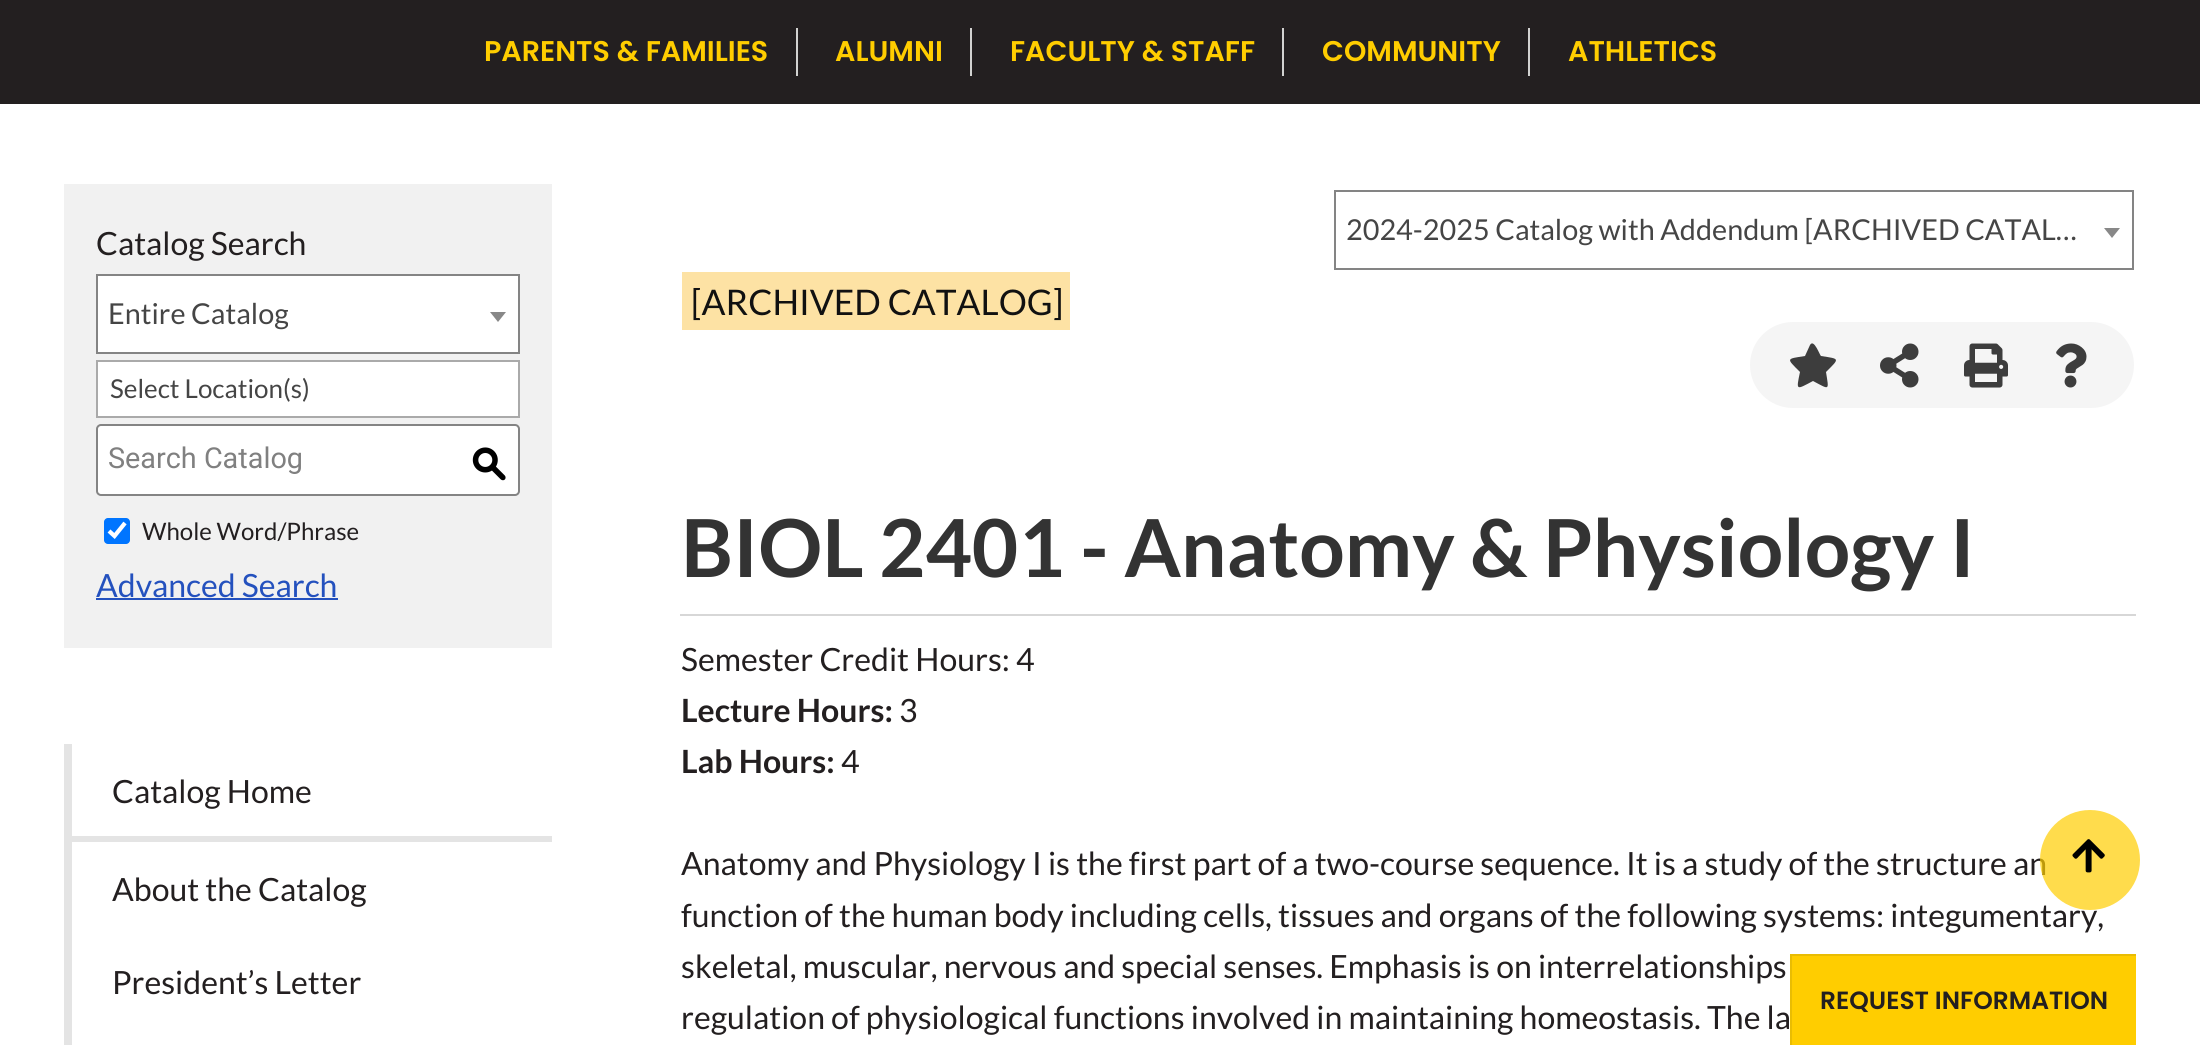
#include <cairo/cairo.h>
#include <math.h>
#include <stddef.h>

typedef struct { double x, y; const char *s; } line_t;
typedef struct { double x, y, w, h; unsigned color; } box_t;
static cairo_t *cr;

static void rgb(unsigned color)
{
	cairo_set_source_rgb(cr, (color >> 16) / 255.0, (color >> 8 & 255) / 255.0, (color & 255) / 255.0);
}

static void rrect(double x, double y, double w, double h, double r)
{
	cairo_new_sub_path(cr);
	cairo_arc(cr, x + w - r, y + h - r, r, 0, M_PI / 2);
	cairo_arc(cr, x + r, y + h - r, r, M_PI / 2, M_PI);
	cairo_arc(cr, x + r, y + r, r, M_PI, 1.5 * M_PI);
	cairo_arc(cr, x + w - r, y + r, r, 1.5 * M_PI, 2 * M_PI);
	cairo_close_path(cr);
}

static void image(const char *path, double x, double y, double w, double h)
{
	cairo_surface_t *image = cairo_image_surface_create_from_png(path);
	cairo_save(cr);
	cairo_set_source_surface(cr, image, x, y);
	cairo_rectangle(cr, x, y, w, h);
	cairo_fill(cr);
	cairo_restore(cr);
	cairo_surface_destroy(image);
}

int main(void) {
	cairo_surface_t *surface = cairo_image_surface_create(CAIRO_FORMAT_RGB24, 2200, 1045);
	cr = cairo_create(surface);
	cairo_font_options_t *options = cairo_font_options_create();
	cairo_font_options_set_hint_metrics(options, CAIRO_HINT_METRICS_OFF);
	cairo_font_options_set_hint_style(options, CAIRO_HINT_STYLE_NONE);
	cairo_set_font_options(cr, options);
	cairo_set_miter_limit(cr, 4);
	rgb(0xffffff);
	cairo_paint(cr);
	{
		static const box_t items[] = {
			{0, 0, 2200, 104, 0x231f20},
			{796, 28, 2, 48, 0xd2d2d1},
			{970, 28, 2, 48, 0xd2d2d1},
			{1282, 28, 2, 48, 0xd2d2d1},
			{1528, 28, 2, 48, 0xd2d2d1},
		};
		for (size_t i = 0; i < sizeof items / sizeof *items; i++) {
			rgb(items[i].color);
			cairo_rectangle(cr, items[i].x, items[i].y, items[i].w, items[i].h);
			cairo_fill(cr);
		}
	}
	cairo_rectangle(cr, 1335, 191, 798, 78);
	rgb(0x848484);
	cairo_stroke(cr);
	rgb(0x888888);
	cairo_new_path(cr);
	cairo_move_to(cr, 2104, 228);
	cairo_line_to(cr, 2120, 228);
	cairo_line_to(cr, 2112, 238);
	cairo_close_path(cr);
	cairo_fill(cr);
	rgb(0xf1f1f1);
	cairo_rectangle(cr, 64, 184, 488, 464);
	cairo_fill(cr);
	rgb(0xffffff);
	cairo_rectangle(cr, 97, 275, 422, 78);
	cairo_fill_preserve(cr);
	rgb(0x848484);
	cairo_stroke(cr);
	rgb(0x888888);
	cairo_new_path(cr);
	cairo_move_to(cr, 490, 312);
	cairo_line_to(cr, 506, 312);
	cairo_line_to(cr, 498, 322);
	cairo_close_path(cr);
	cairo_fill(cr);
	rgb(0xffffff);
	cairo_rectangle(cr, 97, 361, 422, 56);
	cairo_fill_preserve(cr);
	rgb(0xaaaaaa);
	cairo_stroke(cr);
	rgb(0xffffff);
	rrect(97, 425, 422, 70, 4);
	cairo_fill_preserve(cr);
	rgb(0x848484);
	cairo_stroke(cr);
	rgb(0x0075ff);
	rrect(104, 518, 26, 26, 4);
	cairo_fill(cr);
	cairo_new_path(cr);
	cairo_move_to(cr, 109, 531);
	cairo_line_to(cr, 114.5, 536);
	cairo_line_to(cr, 125, 523);
	rgb(0xffffff);
	cairo_set_line_width(cr, 4.2);
	cairo_stroke(cr);
	{
		static const box_t items[] = {
			{96, 598, 242, 2, 0x2451be},
			{64, 744, 8, 92, 0xe4e4e4},
			{64, 836, 488, 6, 0xe4e4e4},
			{64, 842, 8, 203, 0xe4e4e4},
			{682, 272, 388, 58, 0xfde2a4},
		};
		for (size_t i = 0; i < sizeof items / sizeof *items; i++) {
			rgb(items[i].color);
			cairo_rectangle(cr, items[i].x, items[i].y, items[i].w, items[i].h);
			cairo_fill(cr);
		}
	}
	rgb(0xf5f5f5);
	rrect(1750, 322, 384, 86, 43);
	cairo_fill(cr);
	rgb(0x3d3d3d);
	cairo_new_path(cr);
	cairo_move_to(cr, 1810, 345);
	cairo_curve_to(cr, 1814, 338, 1820, 356, 1821, 356);
	cairo_curve_to(cr, 1840, 359, 1840, 358, 1826, 372);
	cairo_curve_to(cr, 1829, 391, 1830, 390, 1813, 381);
	cairo_curve_to(cr, 1796, 390, 1796, 391, 1800, 372);
	cairo_curve_to(cr, 1786, 358, 1786, 359, 1805, 356);
	cairo_close_path(cr);
	cairo_fill(cr);
	image("img/1.png", 1880, 343, 39, 45);
	image("img/2.png", 1964, 343, 44, 45);
	image("img/3.png", 2056, 343, 31, 45);
	{
		static const box_t items[] = {
			{680, 614, 1456, 2, 0xd7d7d7},
			{1792, 956, 344, 89, 0xffcd00},
			{1790, 954, 346, 2, 0xe9bc03},
			{1790, 954, 2, 91, 0xe9bc03},
		};
		for (size_t i = 0; i < sizeof items / sizeof *items; i++) {
			rgb(items[i].color);
			cairo_rectangle(cr, items[i].x, items[i].y, items[i].w, items[i].h);
			cairo_fill(cr);
		}
	}
	cairo_select_font_face(cr, "Poppins SemiBold", CAIRO_FONT_SLANT_NORMAL, CAIRO_FONT_WEIGHT_NORMAL);
	cairo_set_font_size(cr, 28.5);
	rgb(0xffcd00);
	{
		static const line_t items[] = {
			{484, 61, "PARENTS & FAMILIES"},
			{835, 61, "ALUMNI"},
			{1010, 61, "FACULTY & STAFF"},
			{1322, 61, "COMMUNITY"},
			{1568, 61, "ATHLETICS"},
		};
		for (size_t i = 0; i < sizeof items / sizeof *items; i++) {
			cairo_move_to(cr, items[i].x, items[i].y);
			cairo_show_text(cr, items[i].s);
		}
	}
	cairo_select_font_face(cr, "Lato", CAIRO_FONT_SLANT_NORMAL, CAIRO_FONT_WEIGHT_NORMAL);
	cairo_set_font_size(cr, 28.8);
	rgb(0x454545);
	cairo_move_to(cr, 1346, 240);
	cairo_show_text(cr, "2024-2025 Catalog with Addendum [ARCHIVED CATAL…");
	cairo_set_font_size(cr, 32);
	rgb(0x231f20);
	cairo_move_to(cr, 96, 255);
	cairo_show_text(cr, "Catalog Search");
	cairo_save(cr);
	cairo_rectangle(cr, 108, 286, 180, 54);
	cairo_clip(cr);
	cairo_set_font_size(cr, 28.8);
	rgb(0x454545);
	cairo_move_to(cr, 108, 324);
	cairo_show_text(cr, "Entire Catalog");
	cairo_restore(cr);
	cairo_set_font_size(cr, 26);
	rgb(0x454545);
	cairo_move_to(cr, 110, 398);
	cairo_show_text(cr, "Select Location(s)");
	cairo_select_font_face(cr, "Roboto", CAIRO_FONT_SLANT_NORMAL, CAIRO_FONT_WEIGHT_NORMAL);
	cairo_set_font_size(cr, 28.8);
	rgb(0x808080);
	cairo_move_to(cr, 108, 468);
	cairo_show_text(cr, "Search Catalog");
	cairo_select_font_face(cr, "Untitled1 Medium", CAIRO_FONT_SLANT_NORMAL, CAIRO_FONT_WEIGHT_NORMAL);
	cairo_set_font_size(cr, 36);
	rgb(0x000000);
	cairo_move_to(cr, 471, 475);
	cairo_show_text(cr, "S");
	cairo_select_font_face(cr, "Lato", CAIRO_FONT_SLANT_NORMAL, CAIRO_FONT_WEIGHT_NORMAL);
	cairo_set_font_size(cr, 24);
	rgb(0x231f20);
	cairo_move_to(cr, 142, 540);
	cairo_show_text(cr, "Whole Word/Phrase");
	cairo_set_font_size(cr, 32);
	rgb(0x2451be);
	cairo_move_to(cr, 96, 597);
	cairo_show_text(cr, "Advanced Search");
	rgb(0x231f20);
	{
		static const line_t items[] = {
			{112, 803, "Catalog Home"},
			{112, 901, "About the Catalog"},
			{112, 994, "President’s Letter"},
		};
		for (size_t i = 0; i < sizeof items / sizeof *items; i++) {
			cairo_move_to(cr, items[i].x, items[i].y);
			cairo_show_text(cr, items[i].s);
		}
	}
	cairo_set_font_size(cr, 35.25);
	rgb(0x111111);
	cairo_move_to(cr, 691, 315);
	cairo_show_text(cr, "[ARCHIVED CATALOG]");
	cairo_select_font_face(cr, "Lato", CAIRO_FONT_SLANT_NORMAL, CAIRO_FONT_WEIGHT_BOLD);
	cairo_set_font_size(cr, 80);
	rgb(0x333333);
	cairo_move_to(cr, 681, 577);
	cairo_show_text(cr, "BIOL 2401 - Anatomy & Physiology I");
	cairo_select_font_face(cr, "Lato", CAIRO_FONT_SLANT_NORMAL, CAIRO_FONT_WEIGHT_NORMAL);
	cairo_set_font_size(cr, 32);
	rgb(0x231f20);
	cairo_move_to(cr, 681, 671);
	cairo_show_text(cr, "Semester Credit Hours: 4");
	cairo_select_font_face(cr, "Lato", CAIRO_FONT_SLANT_NORMAL, CAIRO_FONT_WEIGHT_BOLD);
	cairo_move_to(cr, 681, 722);
	cairo_show_text(cr, "Lecture Hours:");
	cairo_select_font_face(cr, "Lato", CAIRO_FONT_SLANT_NORMAL, CAIRO_FONT_WEIGHT_NORMAL);
	cairo_move_to(cr, 899, 722);
	cairo_show_text(cr, "3");
	cairo_select_font_face(cr, "Lato", CAIRO_FONT_SLANT_NORMAL, CAIRO_FONT_WEIGHT_BOLD);
	cairo_move_to(cr, 681, 773);
	cairo_show_text(cr, "Lab Hours:");
	cairo_select_font_face(cr, "Lato", CAIRO_FONT_SLANT_NORMAL, CAIRO_FONT_WEIGHT_NORMAL);
	{
		static const line_t items[] = {
			{841, 773, "4"},
			{681, 875, "Anatomy and Physiology I is the first part of a two-course sequence. It is a study of the structure an"},
			{681, 927, "function of the human body including cells, tissues and organs of the following systems: integumentary,"},
			{681, 978, "skeletal, muscular, nervous and special senses. Emphasis is on interrelationships"},
			{681, 1029, "regulation of physiological functions involved in maintaining homeostasis. The la"},
		};
		for (size_t i = 0; i < sizeof items / sizeof *items; i++) {
			cairo_move_to(cr, items[i].x, items[i].y);
			cairo_show_text(cr, items[i].s);
		}
	}
	cairo_set_source_rgba(cr, 1, 0.804, 0, 0.7);
	cairo_new_path(cr);
	cairo_arc(cr, 2090, 860, 50, 0, 2 * M_PI);
	cairo_fill(cr);
	image("img/4.png", 2072, 839, 33, 34);
	cairo_select_font_face(cr, "Poppins SemiBold", CAIRO_FONT_SLANT_NORMAL, CAIRO_FONT_WEIGHT_NORMAL);
	cairo_set_font_size(cr, 24.9);
	rgb(0x231f20);
	cairo_move_to(cr, 1820, 1009);
	cairo_show_text(cr, "REQUEST INFORMATION");
	cairo_surface_write_to_png(surface, "page.png");
	cairo_font_options_destroy(options);
	cairo_destroy(cr);
	cairo_surface_destroy(surface);
	return 0;
}
